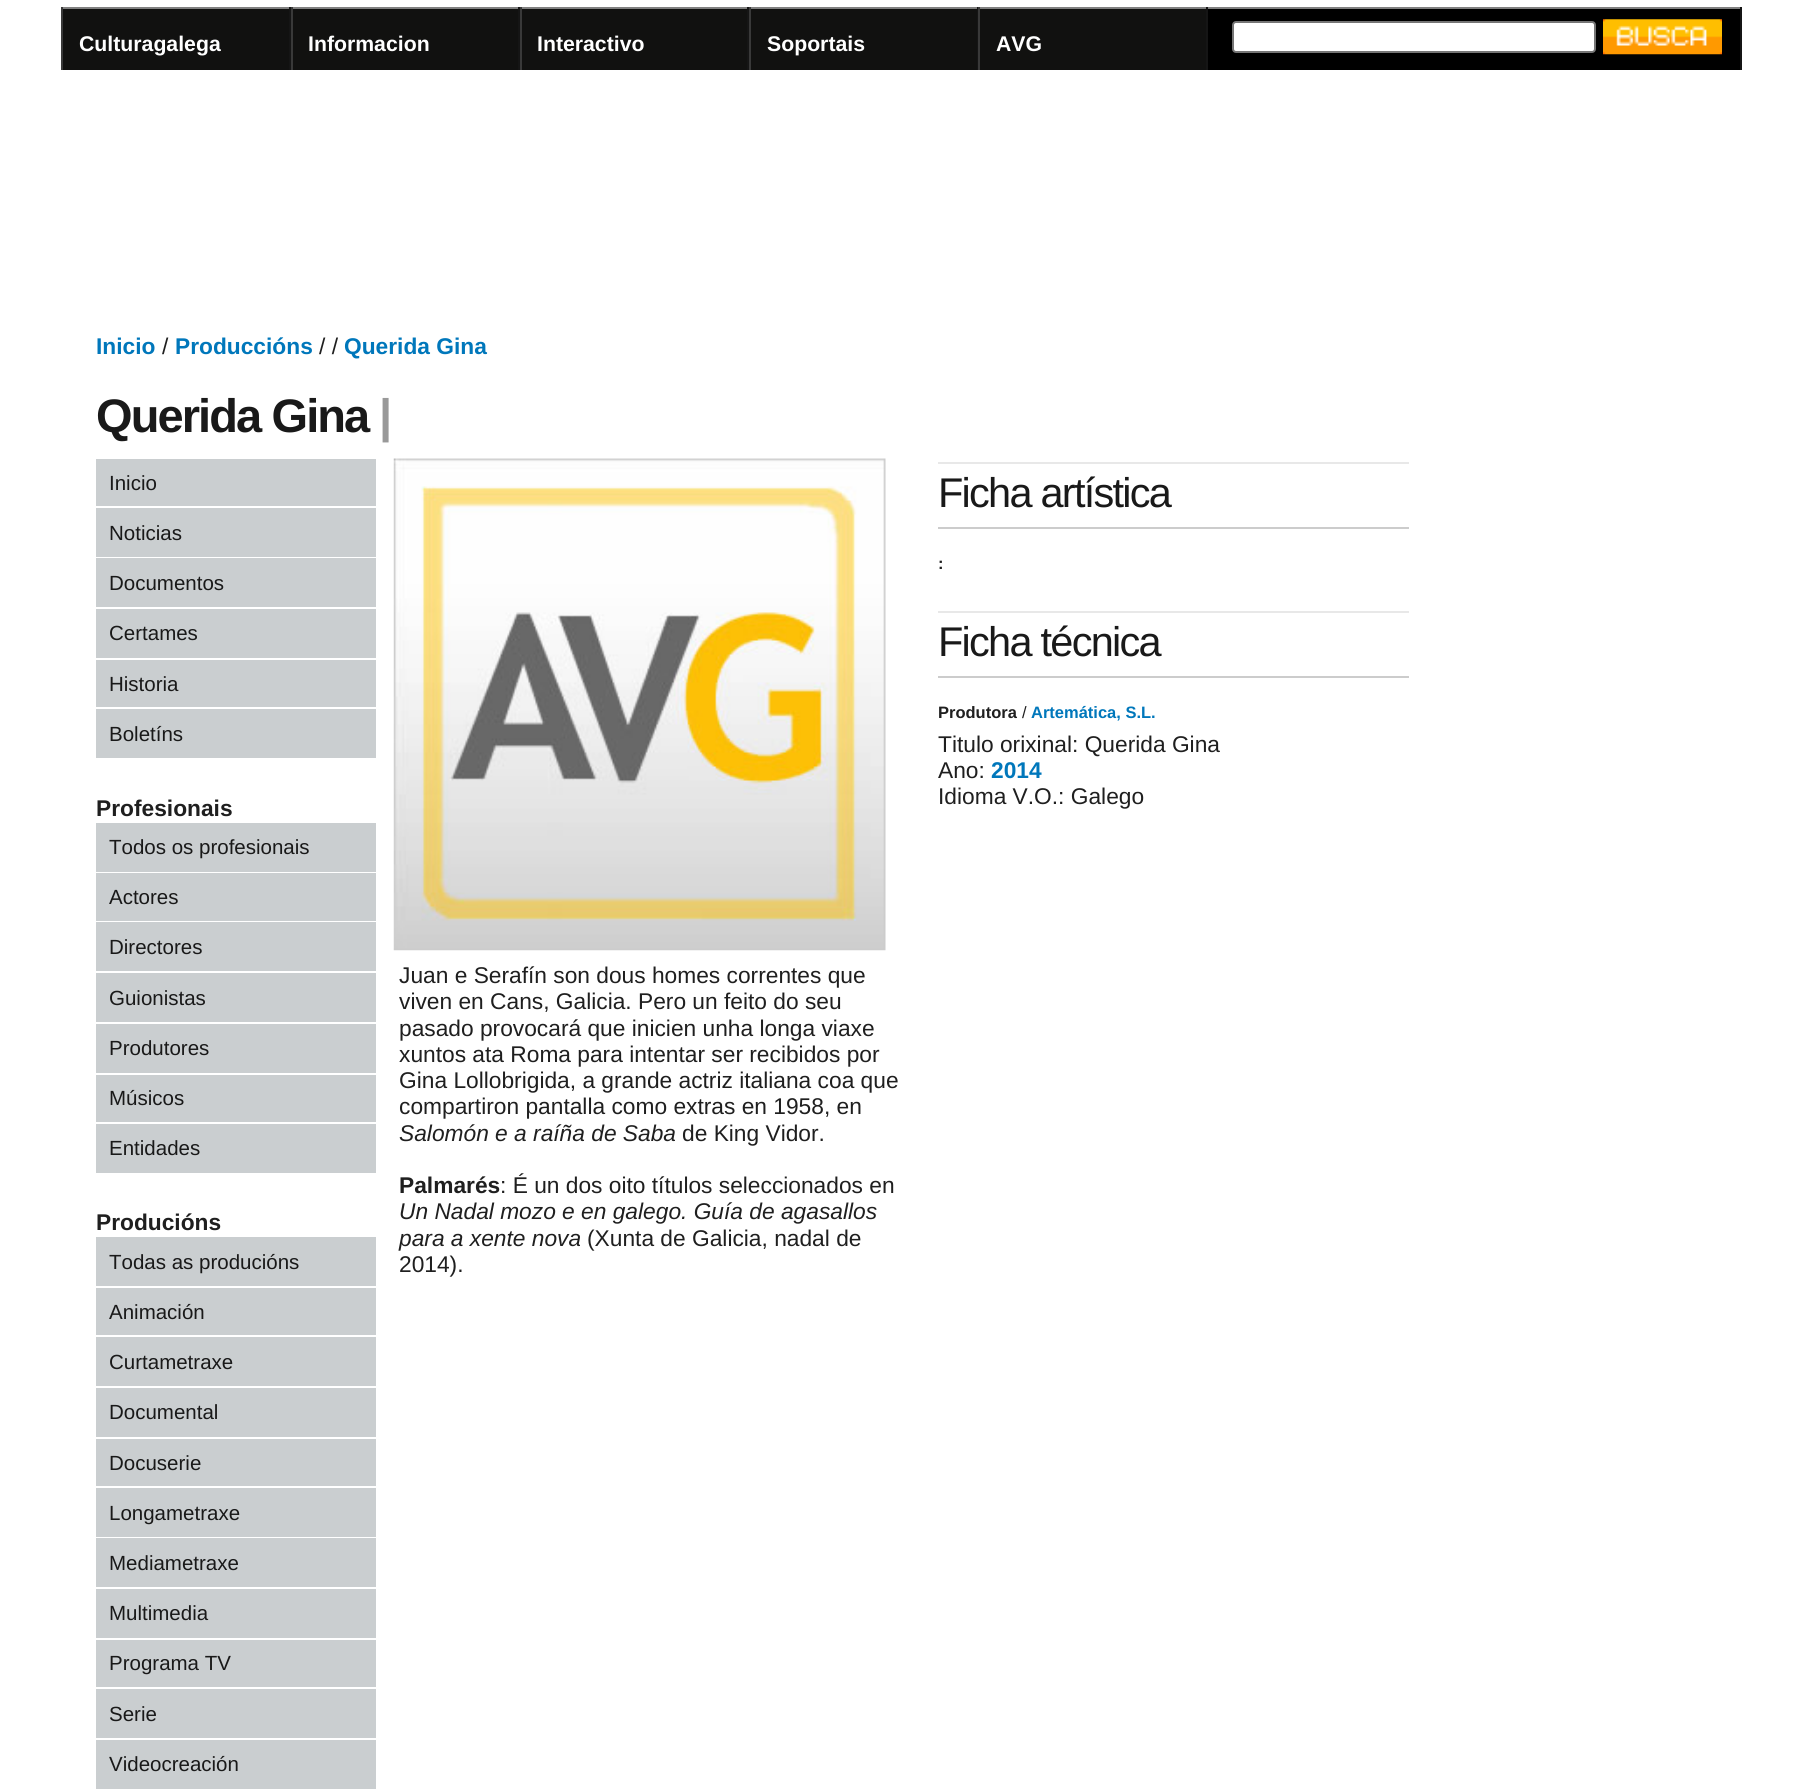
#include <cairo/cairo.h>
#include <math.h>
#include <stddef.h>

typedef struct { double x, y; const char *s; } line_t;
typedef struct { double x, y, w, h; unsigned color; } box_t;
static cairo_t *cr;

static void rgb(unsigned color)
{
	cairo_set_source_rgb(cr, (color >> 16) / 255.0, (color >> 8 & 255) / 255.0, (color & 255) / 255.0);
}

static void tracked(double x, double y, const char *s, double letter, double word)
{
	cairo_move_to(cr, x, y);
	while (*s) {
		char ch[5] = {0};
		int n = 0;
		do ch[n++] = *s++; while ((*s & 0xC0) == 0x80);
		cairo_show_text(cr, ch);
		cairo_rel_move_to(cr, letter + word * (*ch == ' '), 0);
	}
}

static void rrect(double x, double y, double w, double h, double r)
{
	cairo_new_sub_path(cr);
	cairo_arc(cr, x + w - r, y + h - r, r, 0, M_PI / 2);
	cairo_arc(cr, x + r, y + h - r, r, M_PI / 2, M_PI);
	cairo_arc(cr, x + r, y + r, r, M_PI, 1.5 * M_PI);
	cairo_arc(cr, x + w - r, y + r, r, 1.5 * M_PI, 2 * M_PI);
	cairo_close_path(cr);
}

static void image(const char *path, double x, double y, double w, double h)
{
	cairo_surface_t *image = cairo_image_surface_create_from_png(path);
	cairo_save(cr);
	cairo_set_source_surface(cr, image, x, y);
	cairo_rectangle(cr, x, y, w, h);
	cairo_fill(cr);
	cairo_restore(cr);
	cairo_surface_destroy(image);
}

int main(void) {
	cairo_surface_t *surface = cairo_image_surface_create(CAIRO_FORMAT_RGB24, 1801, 1791);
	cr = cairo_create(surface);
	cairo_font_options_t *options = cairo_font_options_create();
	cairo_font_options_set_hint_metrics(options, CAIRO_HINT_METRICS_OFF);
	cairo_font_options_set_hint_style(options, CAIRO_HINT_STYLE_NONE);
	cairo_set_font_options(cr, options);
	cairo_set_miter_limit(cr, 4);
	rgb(0xffffff);
	cairo_paint(cr);
	{
		static const box_t items[] = {
			{63, 9, 226, 61, 0x111110},
			{61, 7, 1147, 2, 0x808080},
			{289, 7, 2, 63, 0x151515},
			{61, 7, 2, 63, 0x393939},
			{293, 9, 225, 61, 0x111110},
			{518, 7, 2, 63, 0x151515},
			{291, 7, 2, 63, 0x393939},
			{522, 9, 225, 61, 0x111110},
			{747, 7, 2, 63, 0x151515},
			{520, 7, 2, 63, 0x393939},
			{751, 9, 226, 61, 0x111110},
			{977, 7, 1, 63, 0x151515},
			{749, 7, 2, 63, 0x393939},
			{980, 9, 226, 61, 0x111110},
			{1206, 7, 2, 63, 0x151515},
			{978, 7, 2, 63, 0x393939},
			{1208, 9, 532, 61, 0x000000},
			{1208, 7, 533, 2, 0x808080},
			{1740, 7, 2, 63, 0x151515},
		};
		for (size_t i = 0; i < sizeof items / sizeof *items; i++) {
			rgb(items[i].color);
			cairo_rectangle(cr, items[i].x, items[i].y, items[i].w, items[i].h);
			cairo_fill(cr);
		}
	}
	rgb(0xffffff);
	rrect(1233, 22, 362, 30, 3);
	cairo_fill_preserve(cr);
	rgb(0x767676);
	cairo_stroke(cr);
	image("img/1.png", 1603, 19, 119, 36);
	{
		static const box_t items[] = {
			{96, 459, 280, 47, 0xcaced0},
			{96, 508, 280, 49, 0xcaced0},
			{96, 558, 280, 49, 0xcaced0},
			{96, 609, 280, 49, 0xcaced0},
			{96, 660, 280, 47, 0xcaced0},
			{96, 709, 280, 49, 0xcaced0},
			{96, 823, 280, 49, 0xcaced0},
			{96, 873, 280, 48, 0xcaced0},
			{96, 922, 280, 49, 0xcaced0},
			{96, 973, 280, 49, 0xcaced0},
			{96, 1024, 280, 49, 0xcaced0},
			{96, 1075, 280, 47, 0xcaced0},
			{96, 1124, 280, 49, 0xcaced0},
			{96, 1237, 280, 49, 0xcaced0},
			{96, 1288, 280, 47, 0xcaced0},
			{96, 1337, 280, 49, 0xcaced0},
			{96, 1388, 280, 49, 0xcaced0},
			{96, 1439, 280, 47, 0xcaced0},
			{96, 1488, 280, 49, 0xcaced0},
			{96, 1538, 280, 49, 0xcaced0},
			{96, 1589, 280, 49, 0xcaced0},
			{96, 1640, 280, 47, 0xcaced0},
			{96, 1689, 280, 49, 0xcaced0},
			{96, 1740, 280, 49, 0xcaced0},
			{938, 462, 471, 2, 0xe8e8e8},
			{938, 527, 471, 2, 0xcccccc},
			{938, 611, 471, 2, 0xe8e8e8},
			{938, 676, 471, 2, 0xcccccc},
		};
		for (size_t i = 0; i < sizeof items / sizeof *items; i++) {
			rgb(items[i].color);
			cairo_rectangle(cr, items[i].x, items[i].y, items[i].w, items[i].h);
			cairo_fill(cr);
		}
	}
	image("img/2.png", 393, 458, 493, 493);
	cairo_select_font_face(cr, "Liberation Sans", CAIRO_FONT_SLANT_NORMAL, CAIRO_FONT_WEIGHT_BOLD);
	cairo_set_font_size(cr, 21.25);
	rgb(0xffffff);
	{
		static const line_t items[] = {
			{79, 51, "Culturagalega"},
			{308, 51, "Informacion"},
			{537, 51, "Interactivo"},
			{767, 51, "Soportais"},
			{996, 51, "AVG"},
		};
		for (size_t i = 0; i < sizeof items / sizeof *items; i++) {
			cairo_move_to(cr, items[i].x, items[i].y);
			cairo_show_text(cr, items[i].s);
		}
	}
	cairo_set_font_size(cr, 22.75);
	rgb(0x0077bb);
	cairo_move_to(cr, 96, 354);
	cairo_show_text(cr, "Inicio");
	cairo_select_font_face(cr, "Liberation Sans", CAIRO_FONT_SLANT_NORMAL, CAIRO_FONT_WEIGHT_NORMAL);
	rgb(0x1f1f1f);
	cairo_move_to(cr, 162, 354);
	cairo_show_text(cr, "/");
	cairo_select_font_face(cr, "Liberation Sans", CAIRO_FONT_SLANT_NORMAL, CAIRO_FONT_WEIGHT_BOLD);
	rgb(0x0077bb);
	cairo_move_to(cr, 175, 354);
	cairo_show_text(cr, "Produccións");
	cairo_select_font_face(cr, "Liberation Sans", CAIRO_FONT_SLANT_NORMAL, CAIRO_FONT_WEIGHT_NORMAL);
	rgb(0x1f1f1f);
	cairo_move_to(cr, 319, 354);
	cairo_show_text(cr, "/ /");
	cairo_select_font_face(cr, "Liberation Sans", CAIRO_FONT_SLANT_NORMAL, CAIRO_FONT_WEIGHT_BOLD);
	rgb(0x0077bb);
	cairo_move_to(cr, 344, 354);
	cairo_show_text(cr, "Querida Gina");
	cairo_set_font_size(cr, 47);
	rgb(0x191919);
	tracked(96, 432, "Querida Gina", -1.9, 0);
	rgb(0x999999);
	tracked(379, 432, "|", -1.9, 0);
	cairo_select_font_face(cr, "Liberation Sans", CAIRO_FONT_SLANT_NORMAL, CAIRO_FONT_WEIGHT_NORMAL);
	cairo_set_font_size(cr, 20.5);
	rgb(0x191919);
	{
		static const line_t items[] = {
			{109, 490, "Inicio"},
			{109, 540, "Noticias"},
			{109, 590, "Documentos"},
			{109, 640, "Certames"},
			{109, 691, "Historia"},
			{109, 741, "Boletíns"},
		};
		for (size_t i = 0; i < sizeof items / sizeof *items; i++) {
			cairo_move_to(cr, items[i].x, items[i].y);
			cairo_show_text(cr, items[i].s);
		}
	}
	cairo_select_font_face(cr, "Liberation Sans", CAIRO_FONT_SLANT_NORMAL, CAIRO_FONT_WEIGHT_BOLD);
	cairo_set_font_size(cr, 22.75);
	rgb(0x1f1f1f);
	cairo_move_to(cr, 96, 816);
	cairo_show_text(cr, "Profesionais");
	cairo_select_font_face(cr, "Liberation Sans", CAIRO_FONT_SLANT_NORMAL, CAIRO_FONT_WEIGHT_NORMAL);
	cairo_set_font_size(cr, 20.5);
	rgb(0x191919);
	{
		static const line_t items[] = {
			{109, 854, "Todos os profesionais"},
			{109, 904, "Actores"},
			{109, 954, "Directores"},
			{109, 1005, "Guionistas"},
			{109, 1055, "Produtores"},
			{109, 1105, "Músicos"},
			{109, 1155, "Entidades"},
		};
		for (size_t i = 0; i < sizeof items / sizeof *items; i++) {
			cairo_move_to(cr, items[i].x, items[i].y);
			cairo_show_text(cr, items[i].s);
		}
	}
	cairo_select_font_face(cr, "Liberation Sans", CAIRO_FONT_SLANT_NORMAL, CAIRO_FONT_WEIGHT_BOLD);
	cairo_set_font_size(cr, 22.75);
	rgb(0x1f1f1f);
	cairo_move_to(cr, 96, 1230);
	cairo_show_text(cr, "Producións");
	cairo_select_font_face(cr, "Liberation Sans", CAIRO_FONT_SLANT_NORMAL, CAIRO_FONT_WEIGHT_NORMAL);
	cairo_set_font_size(cr, 20.5);
	rgb(0x191919);
	{
		static const line_t items[] = {
			{109, 1269, "Todas as producións"},
			{109, 1319, "Animación"},
			{109, 1369, "Curtametraxe"},
			{109, 1419, "Documental"},
			{109, 1470, "Docuserie"},
			{109, 1520, "Longametraxe"},
			{109, 1570, "Mediametraxe"},
			{109, 1620, "Multimedia"},
			{109, 1670, "Programa TV"},
			{109, 1721, "Serie"},
			{109, 1771, "Videocreación"},
		};
		for (size_t i = 0; i < sizeof items / sizeof *items; i++) {
			cairo_move_to(cr, items[i].x, items[i].y);
			cairo_show_text(cr, items[i].s);
		}
	}
	cairo_set_font_size(cr, 41.5);
	tracked(938, 507, "Ficha artística", -1.75, 0);
	cairo_select_font_face(cr, "Liberation Sans", CAIRO_FONT_SLANT_NORMAL, CAIRO_FONT_WEIGHT_BOLD);
	cairo_set_font_size(cr, 16.5);
	rgb(0x1f1f1f);
	cairo_move_to(cr, 938, 569);
	cairo_show_text(cr, ":");
	cairo_select_font_face(cr, "Liberation Sans", CAIRO_FONT_SLANT_NORMAL, CAIRO_FONT_WEIGHT_NORMAL);
	cairo_set_font_size(cr, 41.5);
	rgb(0x191919);
	tracked(938, 656, "Ficha técnica", -1.75, 0);
	cairo_select_font_face(cr, "Liberation Sans", CAIRO_FONT_SLANT_NORMAL, CAIRO_FONT_WEIGHT_BOLD);
	cairo_set_font_size(cr, 16.5);
	rgb(0x1f1f1f);
	cairo_move_to(cr, 938, 718);
	cairo_show_text(cr, "Produtora");
	cairo_select_font_face(cr, "Liberation Sans", CAIRO_FONT_SLANT_NORMAL, CAIRO_FONT_WEIGHT_NORMAL);
	cairo_move_to(cr, 1022, 718);
	cairo_show_text(cr, "/");
	cairo_select_font_face(cr, "Liberation Sans", CAIRO_FONT_SLANT_NORMAL, CAIRO_FONT_WEIGHT_BOLD);
	rgb(0x0077bb);
	cairo_move_to(cr, 1031, 718);
	cairo_show_text(cr, "Artemática, S.L.");
	cairo_select_font_face(cr, "Liberation Sans", CAIRO_FONT_SLANT_NORMAL, CAIRO_FONT_WEIGHT_NORMAL);
	cairo_set_font_size(cr, 22.75);
	rgb(0x1f1f1f);
	cairo_move_to(cr, 938, 752);
	cairo_show_text(cr, "Titulo orixinal: Querida Gina");
	cairo_move_to(cr, 938, 778);
	cairo_show_text(cr, "Ano:");
	cairo_select_font_face(cr, "Liberation Sans", CAIRO_FONT_SLANT_NORMAL, CAIRO_FONT_WEIGHT_BOLD);
	rgb(0x0077bb);
	cairo_move_to(cr, 991, 778);
	cairo_show_text(cr, "2014");
	cairo_select_font_face(cr, "Liberation Sans", CAIRO_FONT_SLANT_NORMAL, CAIRO_FONT_WEIGHT_NORMAL);
	rgb(0x1f1f1f);
	{
		static const line_t items[] = {
			{938, 804, "Idioma V.O.: Galego"},
			{399, 983, "Juan e Serafín son dous homes correntes que"},
			{399, 1009, "viven en Cans, Galicia. Pero un feito do seu"},
			{399, 1036, "pasado provocará que inicien unha longa viaxe"},
			{399, 1062, "xuntos ata Roma para intentar ser recibidos por"},
			{399, 1088, "Gina Lollobrigida, a grande actriz italiana coa que"},
			{399, 1114, "compartiron pantalla como extras en 1958, en"},
		};
		for (size_t i = 0; i < sizeof items / sizeof *items; i++) {
			cairo_move_to(cr, items[i].x, items[i].y);
			cairo_show_text(cr, items[i].s);
		}
	}
	cairo_select_font_face(cr, "Liberation Sans", CAIRO_FONT_SLANT_ITALIC, CAIRO_FONT_WEIGHT_NORMAL);
	cairo_move_to(cr, 399, 1141);
	cairo_show_text(cr, "Salomón e a raíña de Saba");
	cairo_select_font_face(cr, "Liberation Sans", CAIRO_FONT_SLANT_NORMAL, CAIRO_FONT_WEIGHT_NORMAL);
	cairo_move_to(cr, 682, 1141);
	cairo_show_text(cr, "de King Vidor.");
	cairo_select_font_face(cr, "Liberation Sans", CAIRO_FONT_SLANT_NORMAL, CAIRO_FONT_WEIGHT_BOLD);
	cairo_move_to(cr, 399, 1193);
	cairo_show_text(cr, "Palmarés");
	cairo_select_font_face(cr, "Liberation Sans", CAIRO_FONT_SLANT_NORMAL, CAIRO_FONT_WEIGHT_NORMAL);
	cairo_move_to(cr, 500, 1193);
	cairo_show_text(cr, ": É un dos oito títulos seleccionados en");
	cairo_select_font_face(cr, "Liberation Sans", CAIRO_FONT_SLANT_ITALIC, CAIRO_FONT_WEIGHT_NORMAL);
	cairo_move_to(cr, 399, 1219);
	cairo_show_text(cr, "Un Nadal mozo e en galego. Guía de agasallos");
	cairo_move_to(cr, 399, 1246);
	cairo_show_text(cr, "para a xente nova");
	cairo_select_font_face(cr, "Liberation Sans", CAIRO_FONT_SLANT_NORMAL, CAIRO_FONT_WEIGHT_NORMAL);
	cairo_move_to(cr, 587, 1246);
	cairo_show_text(cr, "(Xunta de Galicia, nadal de");
	cairo_move_to(cr, 399, 1272);
	cairo_show_text(cr, "2014).");
	cairo_surface_write_to_png(surface, "page.png");
	cairo_font_options_destroy(options);
	cairo_destroy(cr);
	cairo_surface_destroy(surface);
	return 0;
}
